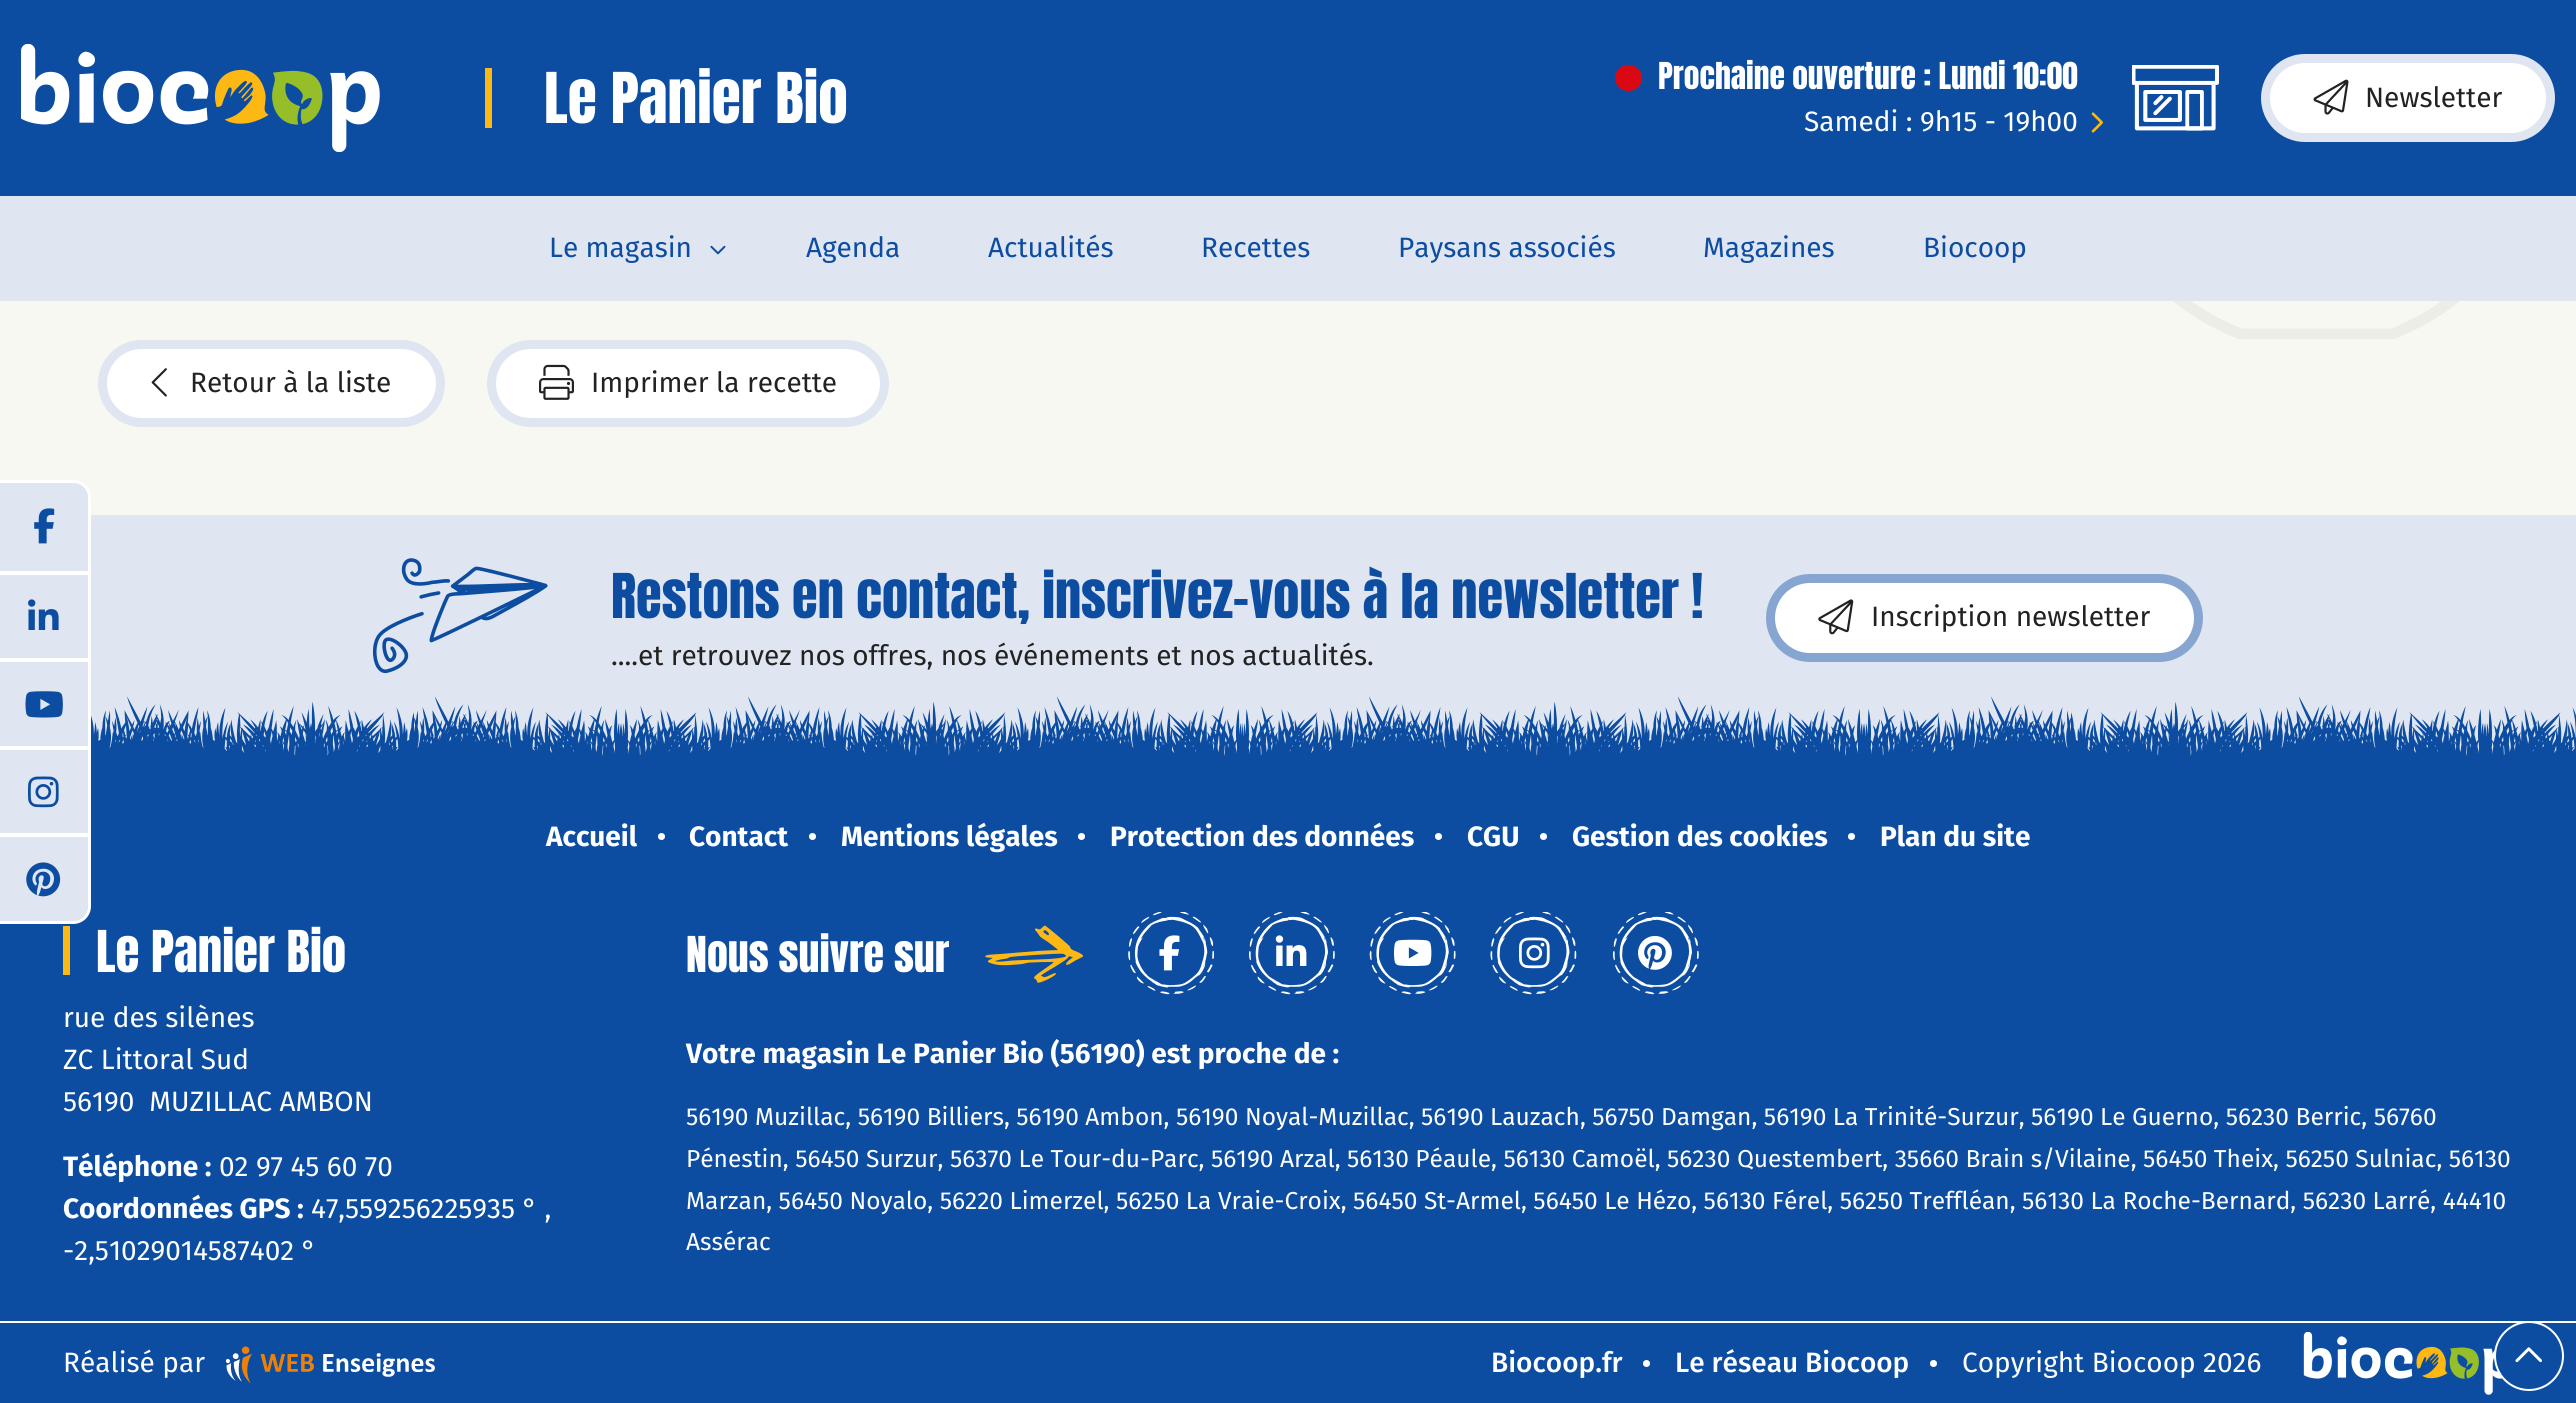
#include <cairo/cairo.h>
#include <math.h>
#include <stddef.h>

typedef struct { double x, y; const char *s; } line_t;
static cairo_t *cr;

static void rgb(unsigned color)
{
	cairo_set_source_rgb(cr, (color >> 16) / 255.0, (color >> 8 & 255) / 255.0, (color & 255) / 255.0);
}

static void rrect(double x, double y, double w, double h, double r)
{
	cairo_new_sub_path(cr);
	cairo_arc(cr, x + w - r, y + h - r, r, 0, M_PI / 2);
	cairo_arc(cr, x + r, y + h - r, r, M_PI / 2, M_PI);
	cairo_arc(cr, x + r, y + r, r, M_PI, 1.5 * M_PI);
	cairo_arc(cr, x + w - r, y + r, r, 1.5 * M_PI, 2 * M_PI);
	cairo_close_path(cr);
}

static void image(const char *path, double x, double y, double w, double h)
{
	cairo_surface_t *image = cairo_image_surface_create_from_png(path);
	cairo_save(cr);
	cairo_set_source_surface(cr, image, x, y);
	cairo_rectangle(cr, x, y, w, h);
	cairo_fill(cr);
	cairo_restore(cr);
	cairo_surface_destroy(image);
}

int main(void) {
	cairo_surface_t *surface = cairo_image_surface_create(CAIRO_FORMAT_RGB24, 2576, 1403);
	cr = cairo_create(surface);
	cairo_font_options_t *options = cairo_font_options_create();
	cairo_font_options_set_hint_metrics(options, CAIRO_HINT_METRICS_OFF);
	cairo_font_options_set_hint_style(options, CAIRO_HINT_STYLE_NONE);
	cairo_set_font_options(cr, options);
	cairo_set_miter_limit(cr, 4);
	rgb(0x0c4da2);
	cairo_paint(cr);
	image("img/1.png", 21, 44, 359, 108);
	rgb(0xfdb813);
	cairo_rectangle(cr, 485, 68, 7, 60);
	cairo_fill(cr);
	rgb(0xda0812);
	rrect(1615, 65, 27, 26, 13);
	cairo_fill(cr);
	image("img/2.png", 2132, 65, 87, 66);
	image("img/3.png", 2091, 112, 12, 21);
	rgb(0xffffff);
	rrect(2265.5, 58.5, 285, 79, 39.5);
	cairo_fill_preserve(cr);
	rgb(0xdfe5f1);
	cairo_set_line_width(cr, 9);
	cairo_stroke(cr);
	image("img/4.png", 2313, 79, 36, 36);
	cairo_rectangle(cr, 0, 196, 2576, 105);
	cairo_fill(cr);
	image("img/5.png", 710, 245, 16, 10);
	rgb(0xffffff);
	cairo_rectangle(cr, 0, 1321, 2576, 2);
	cairo_fill(cr);
	image("img/29.png", 2303, 1332, 200, 63);
	rgb(0x0c4da2);
	cairo_arc(cr, 2529, 1356, 34, 0, 2 * M_PI);
	cairo_fill_preserve(cr);
	rgb(0xffffff);
	cairo_set_line_width(cr, 2);
	cairo_stroke(cr);
	image("img/6.png", 2515, 1347, 27, 16);
	rgb(0xf8f8f2);
	cairo_rectangle(cr, 0, 301, 2576, 214);
	cairo_fill(cr);
	image("img/7.png", 2173, 301, 286, 38);
	rgb(0xffffff);
	rrect(102.5, 344.5, 338, 78, 39);
	cairo_fill_preserve(cr);
	rgb(0xdfe5f1);
	cairo_set_line_width(cr, 9);
	cairo_stroke(cr);
	image("img/8.png", 151, 368, 16, 29);
	rgb(0xffffff);
	rrect(491.5, 344.5, 393, 78, 39);
	cairo_fill_preserve(cr);
	rgb(0xdfe5f1);
	cairo_stroke(cr);
	image("img/9.png", 539, 364, 35, 36);
	cairo_new_path(cr);
	cairo_move_to(cr, -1, 482);
	cairo_line_to(cr, 73, 482);
	cairo_curve_to(cr, 82, 482, 89, 489, 89, 498);
	cairo_line_to(cr, 89, 906);
	cairo_curve_to(cr, 89, 915, 82, 922, 73, 922);
	cairo_line_to(cr, -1, 922);
	cairo_close_path(cr);
	rgb(0xffffff);
	cairo_set_line_width(cr, 4);
	cairo_stroke(cr);
	rgb(0xdfe5f1);
	cairo_new_path(cr);
	cairo_move_to(cr, 0, 483);
	cairo_line_to(cr, 74, 483);
	cairo_curve_to(cr, 81.5, 483, 88, 489.5, 88, 497);
	cairo_line_to(cr, 88, 571);
	cairo_line_to(cr, 0, 571);
	cairo_close_path(cr);
	cairo_fill(cr);
	image("img/10.png", 34, 508, 21, 36);
	cairo_rectangle(cr, 0, 575, 88, 83);
	cairo_fill(cr);
	rgb(0xffffff);
	cairo_rectangle(cr, 0, 571, 88, 4);
	cairo_fill(cr);
	image("img/11.png", 28, 599, 31, 31);
	rgb(0xdfe5f1);
	cairo_rectangle(cr, 0, 662, 88, 84);
	cairo_fill(cr);
	rgb(0xffffff);
	cairo_rectangle(cr, 0, 658, 88, 4);
	cairo_fill(cr);
	image("img/12.png", 25, 691, 38, 27);
	rgb(0xdfe5f1);
	cairo_rectangle(cr, 0, 750, 88, 83);
	cairo_fill(cr);
	rgb(0xffffff);
	cairo_rectangle(cr, 0, 746, 88, 4);
	cairo_fill(cr);
	image("img/13.png", 28, 776, 31, 32);
	rgb(0xdfe5f1);
	cairo_new_path(cr);
	cairo_move_to(cr, 0, 837);
	cairo_line_to(cr, 88, 837);
	cairo_line_to(cr, 88, 907);
	cairo_curve_to(cr, 88, 914.5, 81.5, 921, 74, 921);
	cairo_line_to(cr, 0, 921);
	cairo_close_path(cr);
	cairo_fill(cr);
	rgb(0xffffff);
	cairo_rectangle(cr, 0, 833, 88, 4);
	cairo_fill(cr);
	image("img/14.png", 26, 862, 35, 35);
	rgb(0xdfe5f1);
	cairo_rectangle(cr, 91, 515, 2485, 241);
	cairo_fill(cr);
	image("img/15.png", 373, 558, 175, 116);
	rgb(0xffffff);
	rrect(1770.5, 578.5, 428, 79, 39.5);
	cairo_fill_preserve(cr);
	rgb(0x86a6d1);
	cairo_set_line_width(cr, 9);
	cairo_stroke(cr);
	image("img/16.png", 1818, 599, 36, 36);
	image("img/17.png", 91, 696, 2485, 85);
	rgb(0xffffff);
	cairo_arc(cr, 661.5, 836.5, 3.5, 0, 2 * M_PI);
	cairo_fill(cr);
	cairo_arc(cr, 812.5, 836.5, 3.5, 0, 2 * M_PI);
	cairo_fill(cr);
	cairo_arc(cr, 1081.5, 836.5, 3.5, 0, 2 * M_PI);
	cairo_fill(cr);
	cairo_arc(cr, 1438.5, 836.5, 3.5, 0, 2 * M_PI);
	cairo_fill(cr);
	cairo_arc(cr, 1543.5, 836.5, 3.5, 0, 2 * M_PI);
	cairo_fill(cr);
	cairo_arc(cr, 1851.5, 836.5, 3.5, 0, 2 * M_PI);
	cairo_fill(cr);
	rgb(0xfdb813);
	cairo_rectangle(cr, 63, 926, 7, 49);
	cairo_fill(cr);
	image("img/18.png", 985, 925, 98, 58);
	image("img/19.png", 1128, 912, 86, 83);
	image("img/20.png", 1159, 935, 21, 36);
	image("img/21.png", 1249, 912, 86, 83);
	image("img/22.png", 1275, 935, 32, 31);
	image("img/23.png", 1369, 912, 87, 83);
	image("img/24.png", 1394, 939, 38, 27);
	image("img/25.png", 1490, 912, 87, 83);
	image("img/26.png", 1519, 937, 31, 32);
	image("img/21.png", 1613, 912, 86, 83);
	image("img/27.png", 1638, 935, 34, 35);
	image("img/28.png", 226, 1346, 209, 38);
	rgb(0xffffff);
	cairo_arc(cr, 1646.5, 1363.5, 3.5, 0, 2 * M_PI);
	cairo_fill(cr);
	cairo_arc(cr, 1933.5, 1363.5, 3.5, 0, 2 * M_PI);
	cairo_fill(cr);
	cairo_select_font_face(cr, "Anton", CAIRO_FONT_SLANT_NORMAL, CAIRO_FONT_WEIGHT_NORMAL);
	cairo_set_font_size(cr, 59.5);
	cairo_move_to(cr, 544, 123);
	cairo_show_text(cr, "Le Panier Bio");
	cairo_set_font_size(cr, 31.5);
	cairo_move_to(cr, 1658, 89);
	cairo_show_text(cr, "Prochaine ouverture : Lundi 10:00");
	cairo_select_font_face(cr, "Fira Sans", CAIRO_FONT_SLANT_NORMAL, CAIRO_FONT_WEIGHT_NORMAL);
	cairo_set_font_size(cr, 28);
	cairo_move_to(cr, 1804, 131);
	cairo_show_text(cr, "Samedi : 9h15 - 19h00");
	rgb(0x222222);
	cairo_move_to(cr, 2365, 107);
	cairo_show_text(cr, "Newsletter");
	rgb(0x0c4da2);
	{
		static const line_t items[] = {
			{549, 257, "Le magasin"},
			{806, 257, "Agenda"},
			{988, 257, "Actualités"},
			{1201, 257, "Recettes"},
			{1398, 257, "Paysans associés"},
			{1703, 257, "Magazines"},
			{1923, 257, "Biocoop"},
		};
		for (size_t i = 0; i < sizeof items / sizeof *items; i++) {
			cairo_move_to(cr, items[i].x, items[i].y);
			cairo_show_text(cr, items[i].s);
		}
	}
	rgb(0x222222);
	cairo_move_to(cr, 190, 392);
	cairo_show_text(cr, "Retour à la liste");
	cairo_move_to(cr, 591, 392);
	cairo_show_text(cr, "Imprimer la recette");
	cairo_select_font_face(cr, "Anton", CAIRO_FONT_SLANT_NORMAL, CAIRO_FONT_WEIGHT_NORMAL);
	cairo_set_font_size(cr, 52.5);
	rgb(0x0c4da2);
	cairo_move_to(cr, 611, 618);
	cairo_show_text(cr, "Restons en contact, inscrivez-vous à la newsletter !");
	cairo_select_font_face(cr, "Fira Sans", CAIRO_FONT_SLANT_NORMAL, CAIRO_FONT_WEIGHT_NORMAL);
	cairo_set_font_size(cr, 28);
	rgb(0x222222);
	cairo_move_to(cr, 611, 665);
	cairo_show_text(cr, "....et retrouvez nos offres, nos événements et nos actualités.");
	cairo_move_to(cr, 1871, 626);
	cairo_show_text(cr, "Inscription newsletter");
	cairo_select_font_face(cr, "Fira Sans", CAIRO_FONT_SLANT_NORMAL, CAIRO_FONT_WEIGHT_BOLD);
	rgb(0xffffff);
	{
		static const line_t items[] = {
			{546, 846, "Accueil"},
			{689, 846, "Contact"},
			{841, 846, "Mentions légales"},
			{1110, 846, "Protection des données"},
			{1467, 846, "CGU"},
			{1572, 846, "Gestion des cookies"},
			{1880, 846, "Plan du site"},
		};
		for (size_t i = 0; i < sizeof items / sizeof *items; i++) {
			cairo_move_to(cr, items[i].x, items[i].y);
			cairo_show_text(cr, items[i].s);
		}
	}
	cairo_select_font_face(cr, "Anton", CAIRO_FONT_SLANT_NORMAL, CAIRO_FONT_WEIGHT_NORMAL);
	cairo_set_font_size(cr, 49);
	cairo_move_to(cr, 96, 972);
	cairo_show_text(cr, "Le Panier Bio");
	cairo_select_font_face(cr, "Fira Sans", CAIRO_FONT_SLANT_NORMAL, CAIRO_FONT_WEIGHT_NORMAL);
	cairo_set_font_size(cr, 28);
	{
		static const line_t items[] = {
			{63, 1027, "rue des silènes"},
			{63, 1069, "ZC Littoral Sud"},
			{63, 1111, "56190  MUZILLAC AMBON"},
		};
		for (size_t i = 0; i < sizeof items / sizeof *items; i++) {
			cairo_move_to(cr, items[i].x, items[i].y);
			cairo_show_text(cr, items[i].s);
		}
	}
	cairo_select_font_face(cr, "Fira Sans", CAIRO_FONT_SLANT_NORMAL, CAIRO_FONT_WEIGHT_BOLD);
	cairo_move_to(cr, 63, 1176);
	cairo_show_text(cr, "Téléphone :");
	cairo_select_font_face(cr, "Fira Sans", CAIRO_FONT_SLANT_NORMAL, CAIRO_FONT_WEIGHT_NORMAL);
	cairo_move_to(cr, 219, 1176);
	cairo_show_text(cr, "02 97 45 60 70");
	cairo_select_font_face(cr, "Fira Sans", CAIRO_FONT_SLANT_NORMAL, CAIRO_FONT_WEIGHT_BOLD);
	cairo_move_to(cr, 63, 1218);
	cairo_show_text(cr, "Coordonnées GPS :");
	cairo_select_font_face(cr, "Fira Sans", CAIRO_FONT_SLANT_NORMAL, CAIRO_FONT_WEIGHT_NORMAL);
	cairo_move_to(cr, 311, 1218);
	cairo_show_text(cr, "47,559256225935 ° ,");
	cairo_move_to(cr, 63, 1260);
	cairo_show_text(cr, "-2,51029014587402 °");
	cairo_select_font_face(cr, "Anton", CAIRO_FONT_SLANT_NORMAL, CAIRO_FONT_WEIGHT_NORMAL);
	cairo_set_font_size(cr, 42);
	cairo_move_to(cr, 686, 972);
	cairo_show_text(cr, "Nous suivre sur");
	cairo_select_font_face(cr, "Fira Sans", CAIRO_FONT_SLANT_NORMAL, CAIRO_FONT_WEIGHT_BOLD);
	cairo_set_font_size(cr, 28);
	cairo_move_to(cr, 686, 1063);
	cairo_show_text(cr, "Votre magasin Le Panier Bio (56190) est proche de :");
	cairo_select_font_face(cr, "Fira Sans", CAIRO_FONT_SLANT_NORMAL, CAIRO_FONT_WEIGHT_NORMAL);
	cairo_set_font_size(cr, 24.5);
	{
		static const line_t items[] = {
			{686, 1125, "56190 Muzillac, 56190 Billiers, 56190 Ambon, 56190 Noyal-Muzillac, 56190 Lauzach, 56750 Damgan, 56190 La Trinité-Surzur, 56190 Le Guerno, 56230 Berric, 56760"},
			{686, 1167, "Pénestin, 56450 Surzur, 56370 Le Tour-du-Parc, 56190 Arzal, 56130 Péaule, 56130 Camoël, 56230 Questembert, 35660 Brain s/Vilaine, 56450 Theix, 56250 Sulniac, 56130"},
			{686, 1209, "Marzan, 56450 Noyalo, 56220 Limerzel, 56250 La Vraie-Croix, 56450 St-Armel, 56450 Le Hézo, 56130 Férel, 56250 Treffléan, 56130 La Roche-Bernard, 56230 Larré, 44410"},
			{686, 1250, "Assérac"},
		};
		for (size_t i = 0; i < sizeof items / sizeof *items; i++) {
			cairo_move_to(cr, items[i].x, items[i].y);
			cairo_show_text(cr, items[i].s);
		}
	}
	cairo_set_font_size(cr, 28);
	cairo_move_to(cr, 63, 1372);
	cairo_show_text(cr, "Réalisé par");
	cairo_select_font_face(cr, "Fira Sans Medium", CAIRO_FONT_SLANT_NORMAL, CAIRO_FONT_WEIGHT_NORMAL);
	cairo_move_to(cr, 1491, 1372);
	cairo_show_text(cr, "Biocoop.fr");
	cairo_move_to(cr, 1675, 1372);
	cairo_show_text(cr, "Le réseau Biocoop");
	cairo_select_font_face(cr, "Fira Sans", CAIRO_FONT_SLANT_NORMAL, CAIRO_FONT_WEIGHT_NORMAL);
	cairo_move_to(cr, 1962, 1372);
	cairo_show_text(cr, "Copyright Biocoop 2026");
	cairo_surface_write_to_png(surface, "page.png");
	cairo_font_options_destroy(options);
	cairo_destroy(cr);
	cairo_surface_destroy(surface);
	return 0;
}
